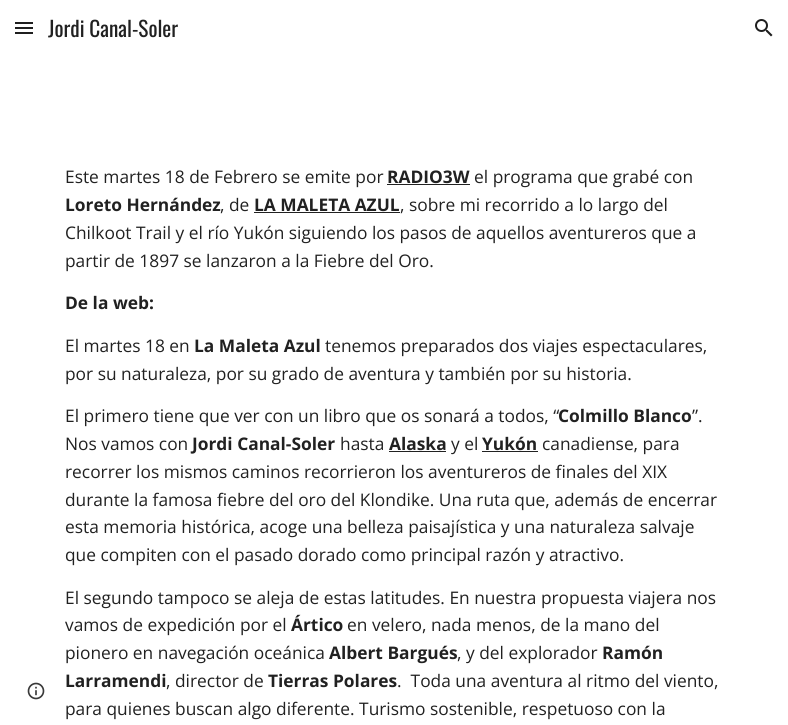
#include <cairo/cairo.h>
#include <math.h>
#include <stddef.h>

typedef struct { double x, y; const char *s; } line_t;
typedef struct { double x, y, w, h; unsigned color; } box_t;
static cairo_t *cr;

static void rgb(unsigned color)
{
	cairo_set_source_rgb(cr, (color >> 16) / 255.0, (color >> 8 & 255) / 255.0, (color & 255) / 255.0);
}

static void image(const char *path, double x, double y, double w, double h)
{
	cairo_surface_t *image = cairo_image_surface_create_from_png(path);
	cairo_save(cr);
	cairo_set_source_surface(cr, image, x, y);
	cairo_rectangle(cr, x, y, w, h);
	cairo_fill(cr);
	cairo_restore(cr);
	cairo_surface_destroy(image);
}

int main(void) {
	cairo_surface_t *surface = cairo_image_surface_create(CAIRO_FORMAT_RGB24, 788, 725);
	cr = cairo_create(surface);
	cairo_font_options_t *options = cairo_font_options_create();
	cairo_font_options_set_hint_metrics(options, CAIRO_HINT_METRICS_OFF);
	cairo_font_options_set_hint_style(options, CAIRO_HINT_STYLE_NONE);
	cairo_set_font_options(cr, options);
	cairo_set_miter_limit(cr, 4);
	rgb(0xffffff);
	cairo_paint(cr);
	{
		static const box_t items[] = {
			{15, 22, 18, 2, 0x1f1f1f},
			{15, 27, 18, 2, 0x1f1f1f},
			{15, 32, 18, 2, 0x1f1f1f},
		};
		for (size_t i = 0; i < sizeof items / sizeof *items; i++) {
			rgb(items[i].color);
			cairo_rectangle(cr, items[i].x, items[i].y, items[i].w, items[i].h);
			cairo_fill(cr);
		}
	}
	image("img/1.png", 755, 19, 18, 18);
	image("img/2.png", 27, 682, 18, 18);
	{
		static const box_t items[] = {
			{387, 184, 83, 1, 0x212121},
			{254, 212, 146, 1, 0x212121},
			{389, 451, 57, 1, 0x212121},
			{482, 451, 56, 1, 0x212121},
		};
		for (size_t i = 0; i < sizeof items / sizeof *items; i++) {
			rgb(items[i].color);
			cairo_rectangle(cr, items[i].x, items[i].y, items[i].w, items[i].h);
			cairo_fill(cr);
		}
	}
	cairo_select_font_face(cr, "Oswald", CAIRO_FONT_SLANT_NORMAL, CAIRO_FONT_WEIGHT_NORMAL);
	cairo_set_font_size(cr, 21.25);
	cairo_move_to(cr, 48, 37);
	cairo_show_text(cr, "Jordi Canal-Soler");
	cairo_select_font_face(cr, "Open Sans", CAIRO_FONT_SLANT_NORMAL, CAIRO_FONT_WEIGHT_NORMAL);
	cairo_set_font_size(cr, 17.35);
	cairo_move_to(cr, 65, 183);
	cairo_show_text(cr, "Este martes 18 de Febrero se emite por");
	cairo_select_font_face(cr, "Open Sans", CAIRO_FONT_SLANT_NORMAL, CAIRO_FONT_WEIGHT_BOLD);
	cairo_move_to(cr, 387, 183);
	cairo_show_text(cr, "RADIO3W");
	cairo_select_font_face(cr, "Open Sans", CAIRO_FONT_SLANT_NORMAL, CAIRO_FONT_WEIGHT_NORMAL);
	cairo_move_to(cr, 474, 183);
	cairo_show_text(cr, "el programa que grabé con");
	cairo_select_font_face(cr, "Open Sans", CAIRO_FONT_SLANT_NORMAL, CAIRO_FONT_WEIGHT_BOLD);
	cairo_move_to(cr, 65, 211);
	cairo_show_text(cr, "Loreto Hernández");
	cairo_select_font_face(cr, "Open Sans", CAIRO_FONT_SLANT_NORMAL, CAIRO_FONT_WEIGHT_NORMAL);
	cairo_move_to(cr, 220, 211);
	cairo_show_text(cr, ", de");
	cairo_select_font_face(cr, "Open Sans", CAIRO_FONT_SLANT_NORMAL, CAIRO_FONT_WEIGHT_BOLD);
	cairo_move_to(cr, 254, 211);
	cairo_show_text(cr, "LA MALETA AZUL");
	cairo_select_font_face(cr, "Open Sans", CAIRO_FONT_SLANT_NORMAL, CAIRO_FONT_WEIGHT_NORMAL);
	{
		static const line_t items[] = {
			{400, 211, ", sobre mi recorrido a lo largo del"},
			{65, 239, "Chilkoot Trail y el río Yukón siguiendo los pasos de aquellos aventureros que a"},
			{65, 267, "partir de 1897 se lanzaron a la Fiebre del Oro."},
		};
		for (size_t i = 0; i < sizeof items / sizeof *items; i++) {
			cairo_move_to(cr, items[i].x, items[i].y);
			cairo_show_text(cr, items[i].s);
		}
	}
	cairo_select_font_face(cr, "Open Sans", CAIRO_FONT_SLANT_NORMAL, CAIRO_FONT_WEIGHT_BOLD);
	cairo_move_to(cr, 65, 309);
	cairo_show_text(cr, "De la web:");
	cairo_select_font_face(cr, "Open Sans", CAIRO_FONT_SLANT_NORMAL, CAIRO_FONT_WEIGHT_NORMAL);
	cairo_move_to(cr, 65, 352);
	cairo_show_text(cr, "El martes 18 en");
	cairo_select_font_face(cr, "Open Sans", CAIRO_FONT_SLANT_NORMAL, CAIRO_FONT_WEIGHT_BOLD);
	cairo_move_to(cr, 194, 352);
	cairo_show_text(cr, "La Maleta Azul");
	cairo_select_font_face(cr, "Open Sans", CAIRO_FONT_SLANT_NORMAL, CAIRO_FONT_WEIGHT_NORMAL);
	{
		static const line_t items[] = {
			{325, 352, "tenemos preparados dos viajes espectaculares,"},
			{65, 380, "por su naturaleza, por su grado de aventura y también por su historia."},
			{65, 422, "El primero tiene que ver con un libro que os sonará a todos, “"},
		};
		for (size_t i = 0; i < sizeof items / sizeof *items; i++) {
			cairo_move_to(cr, items[i].x, items[i].y);
			cairo_show_text(cr, items[i].s);
		}
	}
	cairo_select_font_face(cr, "Open Sans", CAIRO_FONT_SLANT_NORMAL, CAIRO_FONT_WEIGHT_BOLD);
	cairo_move_to(cr, 558, 422);
	cairo_show_text(cr, "Colmillo Blanco");
	cairo_select_font_face(cr, "Open Sans", CAIRO_FONT_SLANT_NORMAL, CAIRO_FONT_WEIGHT_NORMAL);
	cairo_move_to(cr, 692, 422);
	cairo_show_text(cr, "”.");
	cairo_move_to(cr, 65, 450);
	cairo_show_text(cr, "Nos vamos con");
	cairo_select_font_face(cr, "Open Sans", CAIRO_FONT_SLANT_NORMAL, CAIRO_FONT_WEIGHT_BOLD);
	cairo_move_to(cr, 192, 450);
	cairo_show_text(cr, "Jordi Canal-Soler");
	cairo_select_font_face(cr, "Open Sans", CAIRO_FONT_SLANT_NORMAL, CAIRO_FONT_WEIGHT_NORMAL);
	cairo_move_to(cr, 340, 450);
	cairo_show_text(cr, "hasta");
	cairo_select_font_face(cr, "Open Sans", CAIRO_FONT_SLANT_NORMAL, CAIRO_FONT_WEIGHT_BOLD);
	cairo_move_to(cr, 389, 450);
	cairo_show_text(cr, "Alaska");
	cairo_select_font_face(cr, "Open Sans", CAIRO_FONT_SLANT_NORMAL, CAIRO_FONT_WEIGHT_NORMAL);
	cairo_move_to(cr, 451, 450);
	cairo_show_text(cr, "y el");
	cairo_select_font_face(cr, "Open Sans", CAIRO_FONT_SLANT_NORMAL, CAIRO_FONT_WEIGHT_BOLD);
	cairo_move_to(cr, 482, 450);
	cairo_show_text(cr, "Yukón");
	cairo_select_font_face(cr, "Open Sans", CAIRO_FONT_SLANT_NORMAL, CAIRO_FONT_WEIGHT_NORMAL);
	{
		static const line_t items[] = {
			{542, 450, "canadiense, para"},
			{65, 478, "recorrer los mismos caminos recorrieron los aventureros de finales del XIX"},
			{65, 506, "durante la famosa fiebre del oro del Klondike. Una ruta que, además de encerrar"},
			{65, 533, "esta memoria histórica, acoge una belleza paisajística y una naturaleza salvaje"},
			{65, 561, "que compiten con el pasado dorado como principal razón y atractivo."},
			{65, 604, "El segundo tampoco se aleja de estas latitudes. En nuestra propuesta viajera nos"},
			{65, 631, "vamos de expedición por el"},
		};
		for (size_t i = 0; i < sizeof items / sizeof *items; i++) {
			cairo_move_to(cr, items[i].x, items[i].y);
			cairo_show_text(cr, items[i].s);
		}
	}
	cairo_select_font_face(cr, "Open Sans", CAIRO_FONT_SLANT_NORMAL, CAIRO_FONT_WEIGHT_BOLD);
	cairo_move_to(cr, 291, 631);
	cairo_show_text(cr, "Ártico");
	cairo_select_font_face(cr, "Open Sans", CAIRO_FONT_SLANT_NORMAL, CAIRO_FONT_WEIGHT_NORMAL);
	cairo_move_to(cr, 347, 631);
	cairo_show_text(cr, "en velero, nada menos, de la mano del");
	cairo_move_to(cr, 65, 659);
	cairo_show_text(cr, "pionero en navegación oceánica");
	cairo_select_font_face(cr, "Open Sans", CAIRO_FONT_SLANT_NORMAL, CAIRO_FONT_WEIGHT_BOLD);
	cairo_move_to(cr, 329, 659);
	cairo_show_text(cr, "Albert Bargués");
	cairo_select_font_face(cr, "Open Sans", CAIRO_FONT_SLANT_NORMAL, CAIRO_FONT_WEIGHT_NORMAL);
	cairo_move_to(cr, 457, 659);
	cairo_show_text(cr, ", y del explorador");
	cairo_select_font_face(cr, "Open Sans", CAIRO_FONT_SLANT_NORMAL, CAIRO_FONT_WEIGHT_BOLD);
	cairo_move_to(cr, 602, 659);
	cairo_show_text(cr, "Ramón");
	cairo_move_to(cr, 65, 687);
	cairo_show_text(cr, "Larramendi");
	cairo_select_font_face(cr, "Open Sans", CAIRO_FONT_SLANT_NORMAL, CAIRO_FONT_WEIGHT_NORMAL);
	cairo_move_to(cr, 166, 687);
	cairo_show_text(cr, ", director de");
	cairo_select_font_face(cr, "Open Sans", CAIRO_FONT_SLANT_NORMAL, CAIRO_FONT_WEIGHT_BOLD);
	cairo_move_to(cr, 268, 687);
	cairo_show_text(cr, "Tierras Polares");
	cairo_select_font_face(cr, "Open Sans", CAIRO_FONT_SLANT_NORMAL, CAIRO_FONT_WEIGHT_NORMAL);
	cairo_move_to(cr, 397, 687);
	cairo_show_text(cr, ".  Toda una aventura al ritmo del viento,");
	cairo_move_to(cr, 65, 715);
	cairo_show_text(cr, "para quienes buscan algo diferente. Turismo sostenible, respetuoso con la");
	cairo_surface_write_to_png(surface, "page.png");
	cairo_font_options_destroy(options);
	cairo_destroy(cr);
	cairo_surface_destroy(surface);
	return 0;
}
